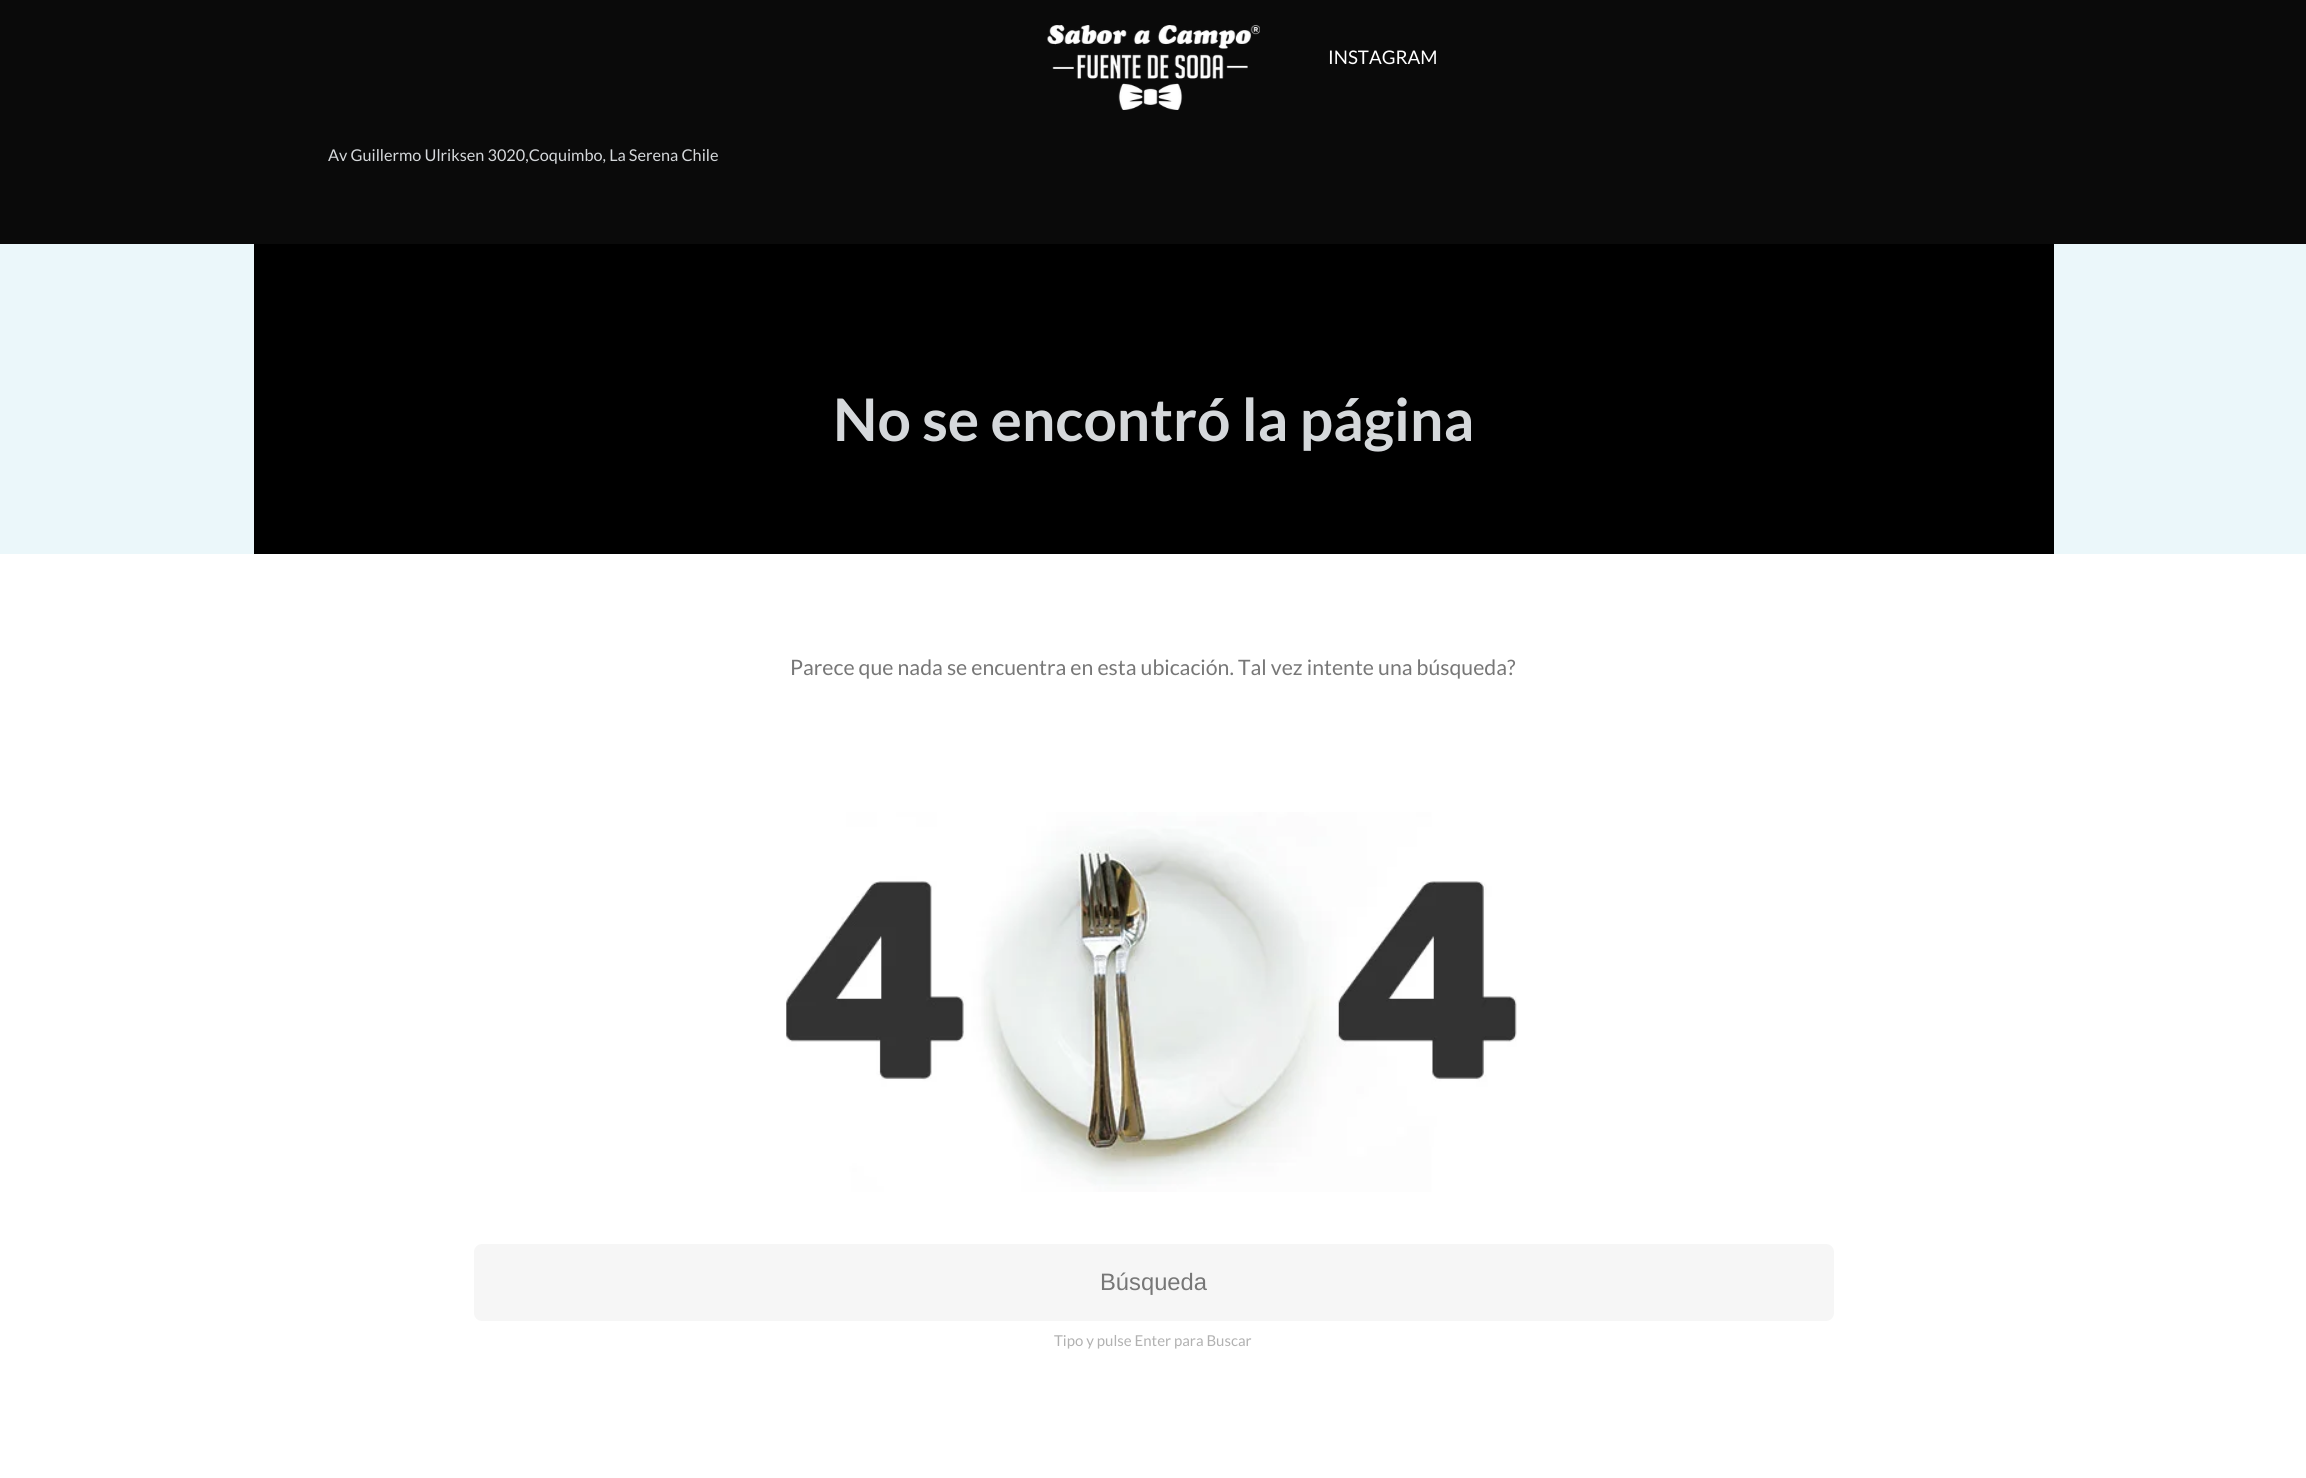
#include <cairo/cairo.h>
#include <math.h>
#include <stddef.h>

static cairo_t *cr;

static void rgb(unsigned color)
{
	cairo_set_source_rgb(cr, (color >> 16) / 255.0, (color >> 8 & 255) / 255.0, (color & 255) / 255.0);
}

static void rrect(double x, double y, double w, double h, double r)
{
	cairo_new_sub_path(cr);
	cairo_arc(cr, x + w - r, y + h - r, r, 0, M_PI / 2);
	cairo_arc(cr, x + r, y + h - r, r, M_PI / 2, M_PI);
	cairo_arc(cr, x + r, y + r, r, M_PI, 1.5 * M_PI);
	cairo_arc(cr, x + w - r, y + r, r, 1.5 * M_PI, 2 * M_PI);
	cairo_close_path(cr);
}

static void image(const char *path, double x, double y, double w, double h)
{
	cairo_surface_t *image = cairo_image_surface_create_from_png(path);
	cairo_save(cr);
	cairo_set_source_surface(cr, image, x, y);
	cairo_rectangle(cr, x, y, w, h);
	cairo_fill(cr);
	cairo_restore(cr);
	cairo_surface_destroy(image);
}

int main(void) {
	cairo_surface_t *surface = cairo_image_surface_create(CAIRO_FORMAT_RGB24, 2306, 1478);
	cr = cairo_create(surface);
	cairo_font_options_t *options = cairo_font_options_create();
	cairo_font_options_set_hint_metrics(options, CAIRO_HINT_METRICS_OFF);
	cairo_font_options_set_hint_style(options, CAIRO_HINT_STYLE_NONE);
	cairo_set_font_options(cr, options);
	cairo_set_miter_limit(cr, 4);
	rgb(0xffffff);
	cairo_paint(cr);
	rgb(0x0a0a0a);
	cairo_rectangle(cr, 0, 0, 2306, 244);
	cairo_fill(cr);
	image("img/1.png", 1047, 25, 213, 85);
	rgb(0xebf7fa);
	cairo_rectangle(cr, 0, 244, 2306, 310);
	cairo_fill(cr);
	rgb(0x000000);
	cairo_rectangle(cr, 254, 244, 1800, 310);
	cairo_fill(cr);
	image("img/2.png", 786, 812, 731, 380);
	rgb(0xf6f6f6);
	rrect(474, 1244, 1360, 77, 8);
	cairo_fill(cr);
	cairo_select_font_face(cr, "Lato", CAIRO_FONT_SLANT_NORMAL, CAIRO_FONT_WEIGHT_NORMAL);
	cairo_set_font_size(cr, 18.75);
	rgb(0xffffff);
	cairo_move_to(cr, 1328, 64);
	cairo_show_text(cr, "INSTAGRAM");
	cairo_set_font_size(cr, 16.25);
	rgb(0xd5d8db);
	cairo_move_to(cr, 328, 161);
	cairo_show_text(cr, "Av Guillermo Ulriksen 3020,Coquimbo, La Serena Chile");
	cairo_select_font_face(cr, "Lato", CAIRO_FONT_SLANT_NORMAL, CAIRO_FONT_WEIGHT_BOLD);
	cairo_set_font_size(cr, 58.75);
	cairo_move_to(cr, 833, 441);
	cairo_show_text(cr, "No se encontró la página");
	cairo_select_font_face(cr, "Lato", CAIRO_FONT_SLANT_NORMAL, CAIRO_FONT_WEIGHT_NORMAL);
	cairo_set_font_size(cr, 21.25);
	rgb(0x777777);
	cairo_move_to(cr, 790, 675);
	cairo_show_text(cr, "Parece que nada se encuentra en esta ubicación. Tal vez intente una búsqueda?");
	cairo_select_font_face(cr, "Liberation Sans", CAIRO_FONT_SLANT_NORMAL, CAIRO_FONT_WEIGHT_NORMAL);
	cairo_set_font_size(cr, 23.75);
	cairo_move_to(cr, 1100, 1290);
	cairo_show_text(cr, "Búsqueda");
	cairo_select_font_face(cr, "Lato", CAIRO_FONT_SLANT_NORMAL, CAIRO_FONT_WEIGHT_NORMAL);
	cairo_set_font_size(cr, 15);
	rgb(0xb1b1b1);
	cairo_move_to(cr, 1054, 1346);
	cairo_show_text(cr, "Tipo y pulse Enter para Buscar");
	cairo_surface_write_to_png(surface, "page.png");
	cairo_font_options_destroy(options);
	cairo_destroy(cr);
	cairo_surface_destroy(surface);
	return 0;
}
